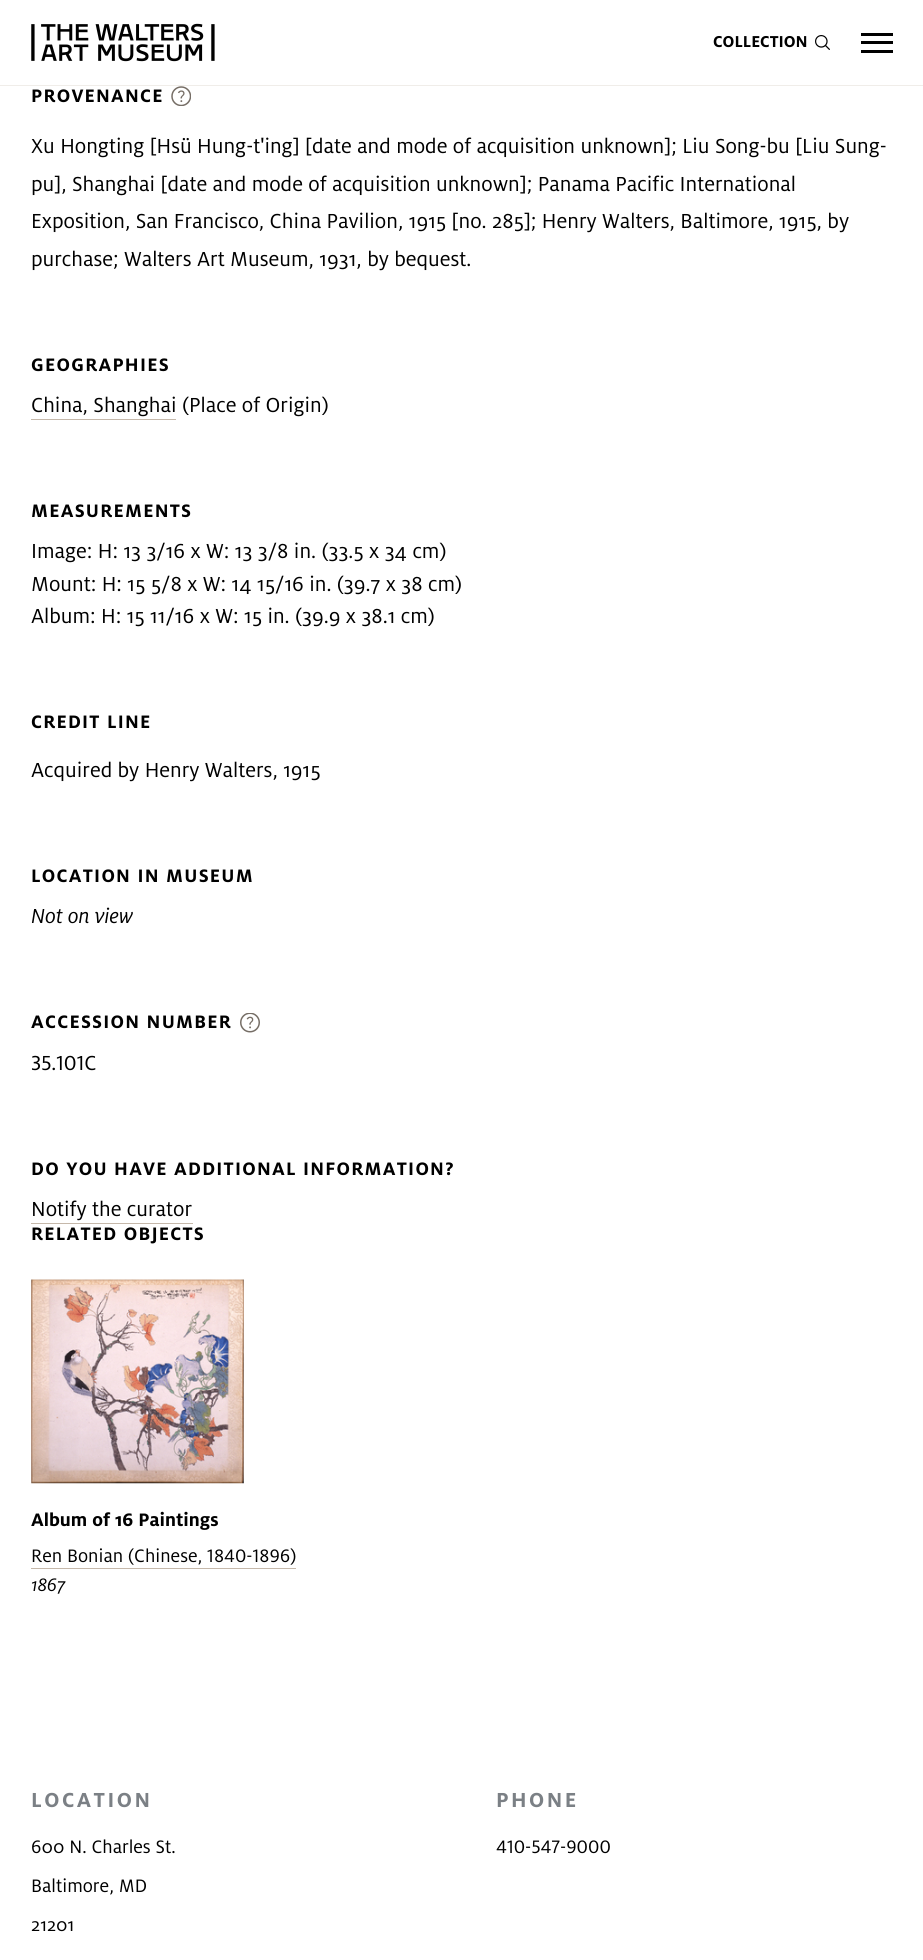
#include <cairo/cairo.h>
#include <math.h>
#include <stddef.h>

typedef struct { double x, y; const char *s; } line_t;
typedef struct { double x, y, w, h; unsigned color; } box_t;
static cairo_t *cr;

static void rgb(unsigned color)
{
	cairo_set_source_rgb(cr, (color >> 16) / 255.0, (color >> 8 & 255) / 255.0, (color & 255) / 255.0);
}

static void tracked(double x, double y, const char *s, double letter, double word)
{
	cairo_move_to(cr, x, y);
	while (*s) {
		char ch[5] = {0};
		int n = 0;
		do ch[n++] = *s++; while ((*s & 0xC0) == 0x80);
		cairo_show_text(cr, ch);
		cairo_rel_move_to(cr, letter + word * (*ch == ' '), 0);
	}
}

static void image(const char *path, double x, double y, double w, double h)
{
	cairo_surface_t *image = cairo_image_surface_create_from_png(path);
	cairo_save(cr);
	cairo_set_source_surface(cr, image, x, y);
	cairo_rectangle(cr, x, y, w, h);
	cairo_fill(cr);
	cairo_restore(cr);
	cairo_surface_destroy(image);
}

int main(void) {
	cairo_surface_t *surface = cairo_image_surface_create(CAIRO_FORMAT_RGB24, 923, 1960);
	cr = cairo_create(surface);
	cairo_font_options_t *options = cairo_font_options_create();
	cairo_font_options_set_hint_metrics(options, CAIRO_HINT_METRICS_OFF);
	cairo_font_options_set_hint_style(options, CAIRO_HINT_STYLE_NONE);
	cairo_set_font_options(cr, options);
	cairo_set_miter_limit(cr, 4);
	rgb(0xffffff);
	cairo_paint(cr);
	rgb(0xf0ede9);
	cairo_rectangle(cr, 0, 85, 923, 1);
	cairo_fill(cr);
	image("img/1.png", 31, 23, 184, 39);
	image("img/2.png", 815, 35, 15, 15);
	{
		static const box_t items[] = {
			{861, 33, 32, 3, 0x000000},
			{861, 41, 32, 3, 0x000000},
			{861, 50, 32, 3, 0x000000},
		};
		for (size_t i = 0; i < sizeof items / sizeof *items; i++) {
			rgb(items[i].color);
			cairo_rectangle(cr, items[i].x, items[i].y, items[i].w, items[i].h);
			cairo_fill(cr);
		}
	}
	image("img/3.png", 171, 86, 20, 20);
	rgb(0xc5b8aa);
	cairo_rectangle(cr, 31, 419, 145, 1);
	cairo_fill(cr);
	image("img/4.png", 240, 1013, 20, 20);
	cairo_rectangle(cr, 31, 1223, 162, 1);
	cairo_fill(cr);
	image("img/5.png", 31, 1279, 213, 205);
	cairo_rectangle(cr, 31, 1568, 265, 1);
	cairo_fill(cr);
	cairo_select_font_face(cr, "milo", CAIRO_FONT_SLANT_NORMAL, CAIRO_FONT_WEIGHT_BOLD);
	cairo_set_font_size(cr, 17.5);
	rgb(0x000000);
	cairo_move_to(cr, 713, 47);
	cairo_show_text(cr, "COLLECTION");
	cairo_set_font_size(cr, 20);
	tracked(31, 102, "PROVENANCE", 1.25, 0);
	cairo_select_font_face(cr, "milo", CAIRO_FONT_SLANT_NORMAL, CAIRO_FONT_WEIGHT_NORMAL);
	cairo_set_font_size(cr, 22.5);
	{
		static const line_t items[] = {
			{31, 153, "Xu Hongting [Hsü Hung-t'ing] [date and mode of acquisition unknown]; Liu Song-bu [Liu Sung-"},
			{31, 191, "pu], Shanghai [date and mode of acquisition unknown]; Panama Pacific International"},
			{31, 228, "Exposition, San Francisco, China Pavilion, 1915 [no. 285]; Henry Walters, Baltimore, 1915, by"},
			{31, 266, "purchase; Walters Art Museum, 1931, by bequest."},
		};
		for (size_t i = 0; i < sizeof items / sizeof *items; i++) {
			cairo_move_to(cr, items[i].x, items[i].y);
			cairo_show_text(cr, items[i].s);
		}
	}
	cairo_select_font_face(cr, "milo", CAIRO_FONT_SLANT_NORMAL, CAIRO_FONT_WEIGHT_BOLD);
	cairo_set_font_size(cr, 20);
	tracked(31, 371, "GEOGRAPHIES", 1.25, 0);
	cairo_select_font_face(cr, "milo", CAIRO_FONT_SLANT_NORMAL, CAIRO_FONT_WEIGHT_NORMAL);
	cairo_set_font_size(cr, 22.5);
	cairo_move_to(cr, 31, 412);
	cairo_show_text(cr, "China, Shanghai");
	cairo_move_to(cr, 182, 412);
	cairo_show_text(cr, "(Place of Origin)");
	cairo_select_font_face(cr, "milo", CAIRO_FONT_SLANT_NORMAL, CAIRO_FONT_WEIGHT_BOLD);
	cairo_set_font_size(cr, 20);
	tracked(31, 517, "MEASUREMENTS", 1.25, 0);
	cairo_select_font_face(cr, "milo", CAIRO_FONT_SLANT_NORMAL, CAIRO_FONT_WEIGHT_NORMAL);
	cairo_set_font_size(cr, 22.5);
	{
		static const line_t items[] = {
			{31, 558, "Image: H: 13 3/16 x W: 13 3/8 in. (33.5 x 34 cm)"},
			{31, 591, "Mount: H: 15 5/8 x W: 14 15/16 in. (39.7 x 38 cm)"},
			{31, 623, "Album: H: 15 11/16 x W: 15 in. (39.9 x 38.1 cm)"},
		};
		for (size_t i = 0; i < sizeof items / sizeof *items; i++) {
			cairo_move_to(cr, items[i].x, items[i].y);
			cairo_show_text(cr, items[i].s);
		}
	}
	cairo_select_font_face(cr, "milo", CAIRO_FONT_SLANT_NORMAL, CAIRO_FONT_WEIGHT_BOLD);
	cairo_set_font_size(cr, 20);
	tracked(31, 728, "CREDIT LINE", 1.25, 0);
	cairo_select_font_face(cr, "milo", CAIRO_FONT_SLANT_NORMAL, CAIRO_FONT_WEIGHT_NORMAL);
	cairo_set_font_size(cr, 22.5);
	cairo_move_to(cr, 31, 777);
	cairo_show_text(cr, "Acquired by Henry Walters, 1915");
	cairo_select_font_face(cr, "milo", CAIRO_FONT_SLANT_NORMAL, CAIRO_FONT_WEIGHT_BOLD);
	cairo_set_font_size(cr, 20);
	tracked(31, 882, "LOCATION IN MUSEUM", 1.25, 0);
	cairo_select_font_face(cr, "milo", CAIRO_FONT_SLANT_ITALIC, CAIRO_FONT_WEIGHT_NORMAL);
	cairo_set_font_size(cr, 22.5);
	cairo_move_to(cr, 31, 923);
	cairo_show_text(cr, "Not on view");
	cairo_select_font_face(cr, "milo", CAIRO_FONT_SLANT_NORMAL, CAIRO_FONT_WEIGHT_BOLD);
	cairo_set_font_size(cr, 20);
	tracked(31, 1028, "ACCESSION NUMBER", 1.25, 0);
	cairo_select_font_face(cr, "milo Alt", CAIRO_FONT_SLANT_NORMAL, CAIRO_FONT_WEIGHT_NORMAL);
	cairo_set_font_size(cr, 22.5);
	cairo_move_to(cr, 31, 1070);
	cairo_show_text(cr, "35.101C");
	cairo_select_font_face(cr, "milo", CAIRO_FONT_SLANT_NORMAL, CAIRO_FONT_WEIGHT_BOLD);
	cairo_set_font_size(cr, 20);
	tracked(31, 1175, "DO YOU HAVE ADDITIONAL INFORMATION?", 1.25, 0);
	cairo_select_font_face(cr, "milo", CAIRO_FONT_SLANT_NORMAL, CAIRO_FONT_WEIGHT_NORMAL);
	cairo_set_font_size(cr, 22.5);
	cairo_move_to(cr, 31, 1216);
	cairo_show_text(cr, "Notify the curator");
	cairo_select_font_face(cr, "milo", CAIRO_FONT_SLANT_NORMAL, CAIRO_FONT_WEIGHT_BOLD);
	cairo_set_font_size(cr, 20);
	tracked(31, 1240, "RELATED OBJECTS", 1.25, 0);
	cairo_move_to(cr, 31, 1526);
	cairo_show_text(cr, "Album of 16 Paintings");
	cairo_select_font_face(cr, "milo Alt", CAIRO_FONT_SLANT_NORMAL, CAIRO_FONT_WEIGHT_NORMAL);
	cairo_move_to(cr, 31, 1562);
	cairo_show_text(cr, "Ren Bonian (Chinese, 1840-1896)");
	cairo_select_font_face(cr, "milo", CAIRO_FONT_SLANT_ITALIC, CAIRO_FONT_WEIGHT_NORMAL);
	cairo_move_to(cr, 31, 1591);
	cairo_show_text(cr, "1867");
	cairo_select_font_face(cr, "milo", CAIRO_FONT_SLANT_NORMAL, CAIRO_FONT_WEIGHT_BOLD);
	cairo_set_font_size(cr, 22.5);
	rgb(0x7b8085);
	tracked(31, 1807, "LOCATION", 2.5, 0);
	cairo_select_font_face(cr, "milo", CAIRO_FONT_SLANT_NORMAL, CAIRO_FONT_WEIGHT_NORMAL);
	cairo_set_font_size(cr, 20);
	rgb(0x000000);
	{
		static const line_t items[] = {
			{31, 1853, "600 N. Charles St."},
			{31, 1892, "Baltimore, MD"},
			{31, 1931, "21201"},
		};
		for (size_t i = 0; i < sizeof items / sizeof *items; i++) {
			cairo_move_to(cr, items[i].x, items[i].y);
			cairo_show_text(cr, items[i].s);
		}
	}
	cairo_select_font_face(cr, "milo", CAIRO_FONT_SLANT_NORMAL, CAIRO_FONT_WEIGHT_BOLD);
	cairo_set_font_size(cr, 22.5);
	rgb(0x7b8085);
	tracked(496, 1807, "PHONE", 2.5, 0);
	cairo_select_font_face(cr, "milo Alt", CAIRO_FONT_SLANT_NORMAL, CAIRO_FONT_WEIGHT_NORMAL);
	cairo_set_font_size(cr, 20);
	rgb(0x000000);
	cairo_move_to(cr, 496, 1853);
	cairo_show_text(cr, "410-547-9000");
	cairo_surface_write_to_png(surface, "page.png");
	cairo_font_options_destroy(options);
	cairo_destroy(cr);
	cairo_surface_destroy(surface);
	return 0;
}
